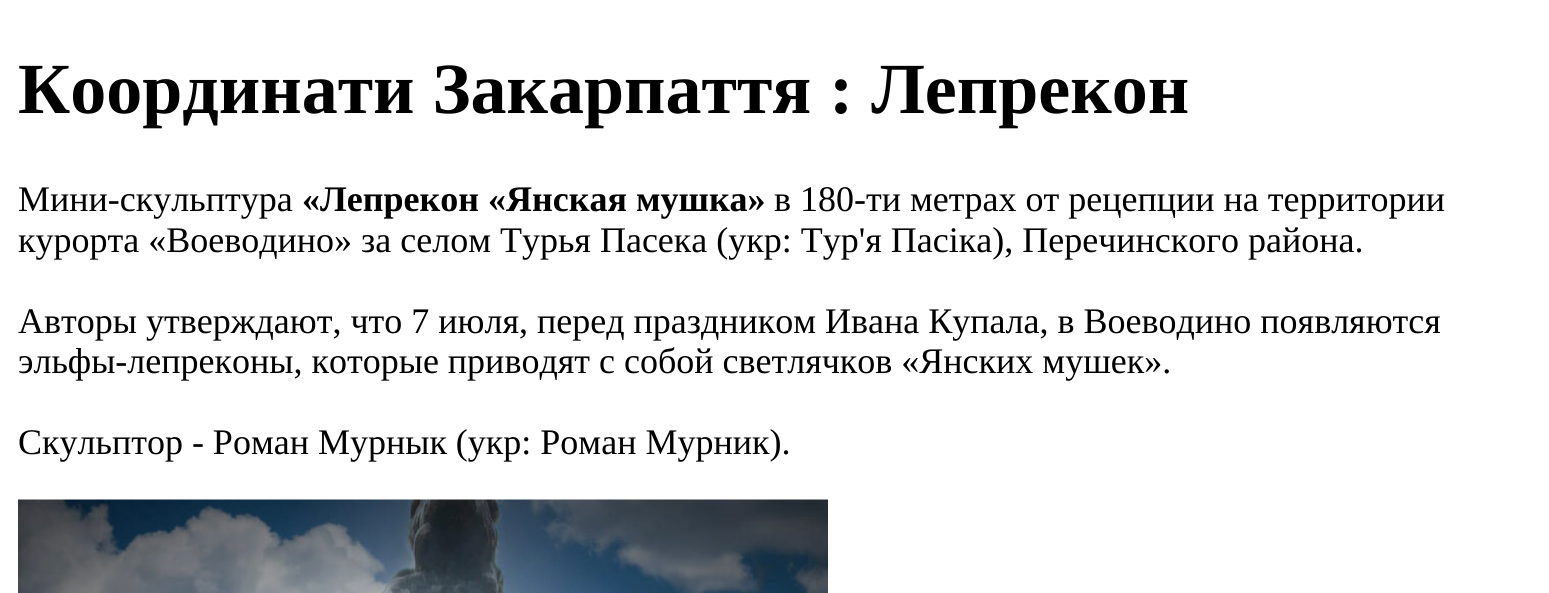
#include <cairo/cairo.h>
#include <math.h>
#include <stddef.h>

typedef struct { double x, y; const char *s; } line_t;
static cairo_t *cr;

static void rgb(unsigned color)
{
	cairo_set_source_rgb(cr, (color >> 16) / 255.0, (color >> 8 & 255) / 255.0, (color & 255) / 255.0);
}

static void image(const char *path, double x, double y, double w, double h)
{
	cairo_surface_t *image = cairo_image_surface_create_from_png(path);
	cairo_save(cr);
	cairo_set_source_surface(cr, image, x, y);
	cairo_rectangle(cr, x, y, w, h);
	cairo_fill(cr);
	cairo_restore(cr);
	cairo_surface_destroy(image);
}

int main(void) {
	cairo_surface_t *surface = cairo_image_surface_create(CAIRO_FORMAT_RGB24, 1549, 593);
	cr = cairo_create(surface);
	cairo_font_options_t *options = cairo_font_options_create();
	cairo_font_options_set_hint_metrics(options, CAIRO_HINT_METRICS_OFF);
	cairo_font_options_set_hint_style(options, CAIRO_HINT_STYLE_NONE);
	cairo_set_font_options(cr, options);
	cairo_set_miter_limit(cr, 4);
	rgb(0xffffff);
	cairo_paint(cr);
	image("img/1.png", 18, 499, 810, 94);
	cairo_select_font_face(cr, "Liberation Serif", CAIRO_FONT_SLANT_NORMAL, CAIRO_FONT_WEIGHT_BOLD);
	cairo_set_font_size(cr, 72);
	rgb(0x000000);
	cairo_move_to(cr, 18, 113);
	cairo_show_text(cr, "Координати Закарпаття : Лепрекон");
	cairo_select_font_face(cr, "Liberation Serif", CAIRO_FONT_SLANT_NORMAL, CAIRO_FONT_WEIGHT_NORMAL);
	cairo_set_font_size(cr, 36);
	cairo_move_to(cr, 18, 211);
	cairo_show_text(cr, "Мини-скульптура");
	cairo_select_font_face(cr, "Liberation Serif", CAIRO_FONT_SLANT_NORMAL, CAIRO_FONT_WEIGHT_BOLD);
	cairo_move_to(cr, 302, 211);
	cairo_show_text(cr, "«Лепрекон «Янская мушка»");
	cairo_select_font_face(cr, "Liberation Serif", CAIRO_FONT_SLANT_NORMAL, CAIRO_FONT_WEIGHT_NORMAL);
	{
		static const line_t items[] = {
			{774, 211, "в 180-ти метрах от рецепции на территории"},
			{18, 252, "курорта «Воеводино» за селом Турья Пасека (укр: Тур'я Пасіка), Перечинского района."},
			{18, 333, "Авторы утверждают, что 7 июля, перед праздником Ивана Купала, в Воеводино появляются"},
			{18, 373, "эльфы-лепреконы, которые приводят с собой светлячков «Янских мушек»."},
			{18, 454, "Скульптор - Роман Мурнык (укр: Роман Мурник)."},
		};
		for (size_t i = 0; i < sizeof items / sizeof *items; i++) {
			cairo_move_to(cr, items[i].x, items[i].y);
			cairo_show_text(cr, items[i].s);
		}
	}
	cairo_surface_write_to_png(surface, "page.png");
	cairo_font_options_destroy(options);
	cairo_destroy(cr);
	cairo_surface_destroy(surface);
	return 0;
}
